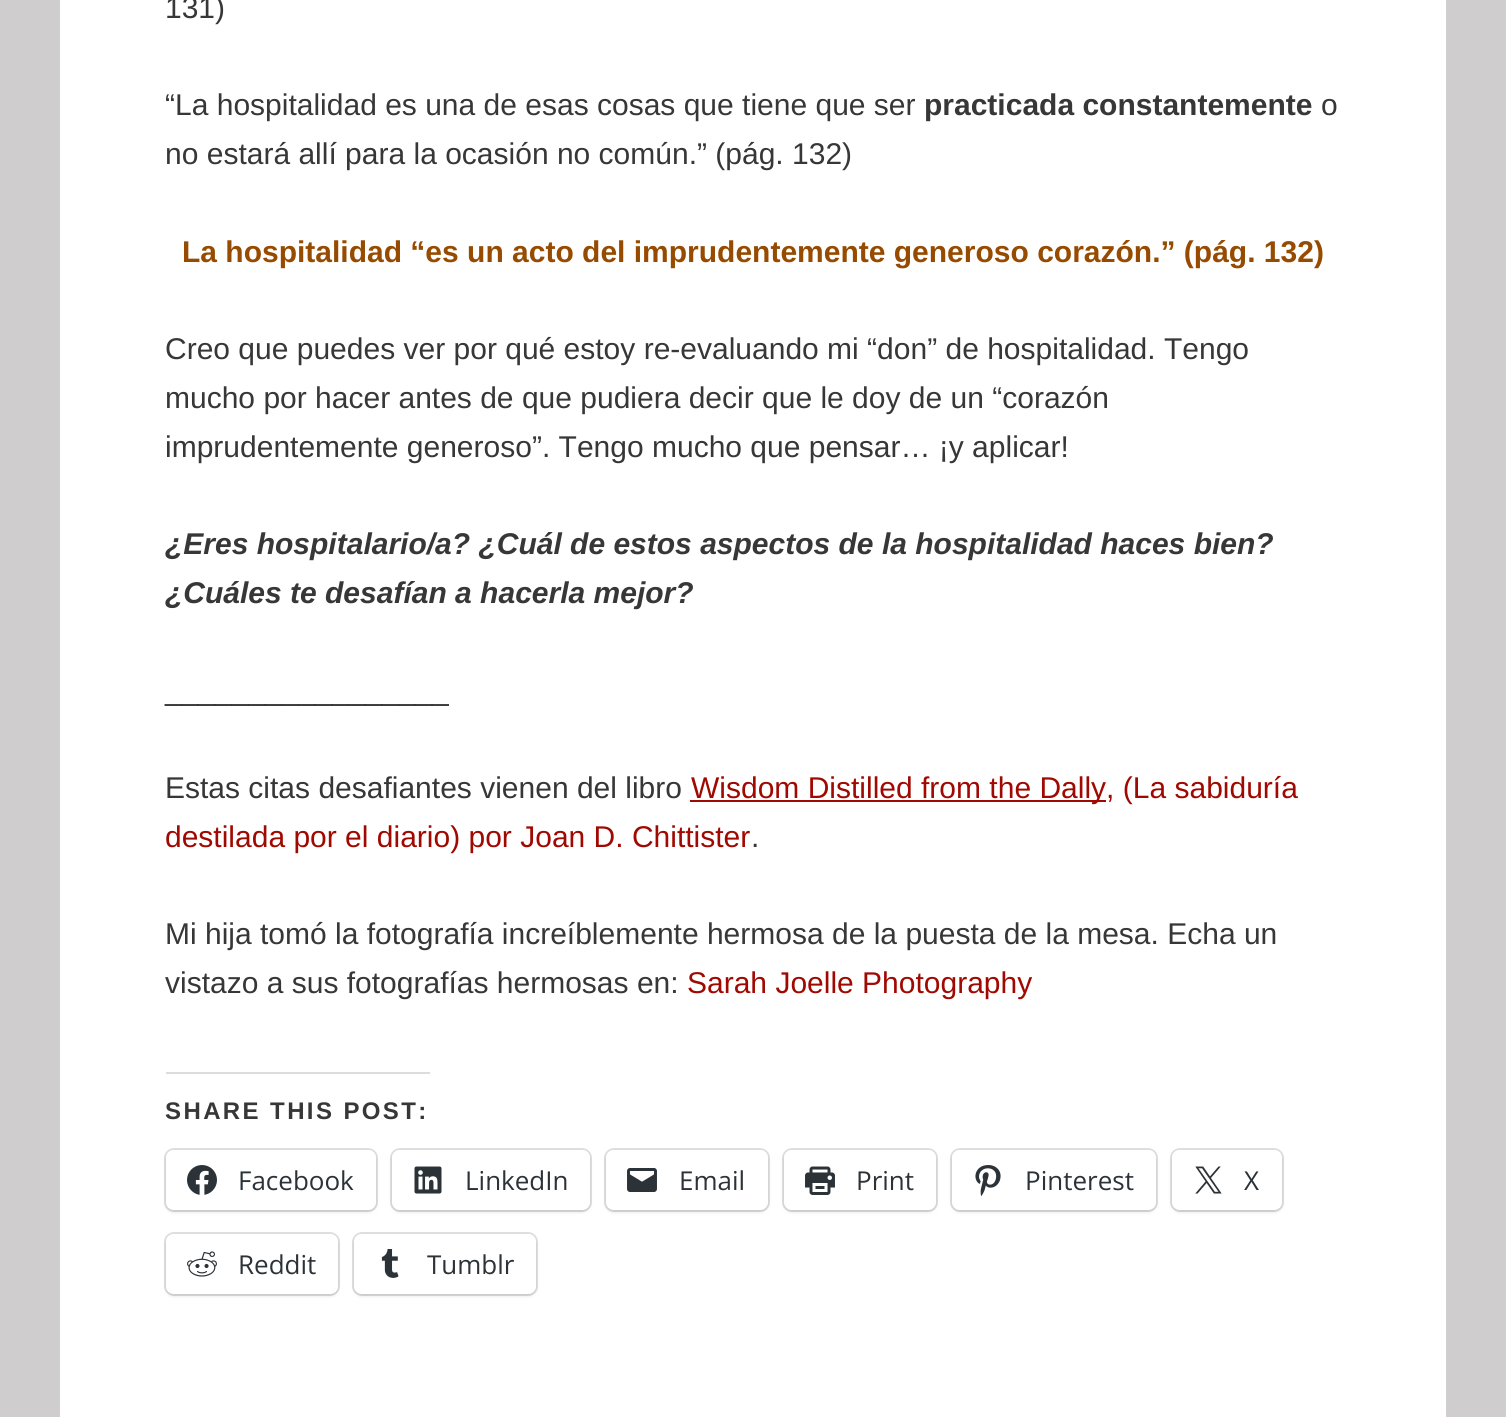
#include <cairo/cairo.h>
#include <math.h>
#include <stddef.h>

typedef struct { double x, y; const char *s; } line_t;
typedef struct { double x, y, w, h; unsigned color; } box_t;
static cairo_t *cr;

static void rgb(unsigned color)
{
	cairo_set_source_rgb(cr, (color >> 16) / 255.0, (color >> 8 & 255) / 255.0, (color & 255) / 255.0);
}

static void tracked(double x, double y, const char *s, double letter, double word)
{
	cairo_move_to(cr, x, y);
	while (*s) {
		char ch[5] = {0};
		int n = 0;
		do ch[n++] = *s++; while ((*s & 0xC0) == 0x80);
		cairo_show_text(cr, ch);
		cairo_rel_move_to(cr, letter + word * (*ch == ' '), 0);
	}
}

static void rrect(double x, double y, double w, double h, double r)
{
	cairo_new_sub_path(cr);
	cairo_arc(cr, x + w - r, y + h - r, r, 0, M_PI / 2);
	cairo_arc(cr, x + r, y + h - r, r, M_PI / 2, M_PI);
	cairo_arc(cr, x + r, y + r, r, M_PI, 1.5 * M_PI);
	cairo_arc(cr, x + w - r, y + r, r, 1.5 * M_PI, 2 * M_PI);
	cairo_close_path(cr);
}

static void soft_shadow(double x, double y, double w, double h, double r, double blur, double alpha)
{
	cairo_push_group_with_content(cr, CAIRO_CONTENT_ALPHA);
	cairo_set_operator(cr, CAIRO_OPERATOR_SOURCE);
	for (int i = 15; i >= -15 && fmin(w, h) + blur * i / 3 > 0; i -= 2) {
		double e = blur * i / 6;
		cairo_set_source_rgba(cr, 0, 0, 0, alpha * erfc((i - 1) / 8.5) / 2);
		rrect(x - e, y - e, w + 2 * e, h + 2 * e, fmax(0, fmin(r + e + blur * .6, fmin(w, h) / 2 + e)));
		cairo_fill(cr);
	}
	cairo_pattern_t *soft = cairo_pop_group(cr);
	cairo_mask(cr, soft);
	cairo_pattern_destroy(soft);
}

static void image(const char *path, double x, double y, double w, double h)
{
	cairo_surface_t *image = cairo_image_surface_create_from_png(path);
	cairo_save(cr);
	cairo_set_source_surface(cr, image, x, y);
	cairo_rectangle(cr, x, y, w, h);
	cairo_fill(cr);
	cairo_restore(cr);
	cairo_surface_destroy(image);
}

int main(void) {
	cairo_surface_t *surface = cairo_image_surface_create(CAIRO_FORMAT_RGB24, 1506, 1417);
	cr = cairo_create(surface);
	cairo_font_options_t *options = cairo_font_options_create();
	cairo_font_options_set_hint_metrics(options, CAIRO_HINT_METRICS_OFF);
	cairo_font_options_set_hint_style(options, CAIRO_HINT_STYLE_NONE);
	cairo_set_font_options(cr, options);
	cairo_set_miter_limit(cr, 4);
	rgb(0xcfcdcd);
	cairo_paint(cr);
	{
		static const box_t items[] = {
			{60, 0, 1386, 1417, 0xffffff},
			{690, 800, 416, 2, 0xa00901},
			{166, 1072, 264, 2, 0xdcdcde},
		};
		for (size_t i = 0; i < sizeof items / sizeof *items; i++) {
			rgb(items[i].color);
			cairo_rectangle(cr, items[i].x, items[i].y, items[i].w, items[i].h);
			cairo_fill(cr);
		}
	}
	rrect(165, 1149, 212, 62, 9);
	rgb(0xe0e0e0);
	cairo_stroke(cr);
	rgb(0x000000);
	soft_shadow(166, 1152, 210, 60, 8, 2, 0.12);
	rgb(0xffffff);
	rrect(166, 1150, 210, 60, 8);
	cairo_fill(cr);
	image("img/1.png", 187, 1165, 30, 30);
	rrect(391, 1149, 200, 62, 9);
	rgb(0xe0e0e0);
	cairo_stroke(cr);
	rgb(0x000000);
	soft_shadow(392, 1152, 198, 60, 8, 2, 0.12);
	rgb(0xffffff);
	rrect(392, 1150, 198, 60, 8);
	cairo_fill(cr);
	image("img/2.png", 414, 1166, 28, 28);
	rrect(605, 1149, 164, 62, 9);
	rgb(0xe0e0e0);
	cairo_stroke(cr);
	rgb(0x000000);
	soft_shadow(606, 1152, 162, 60, 8, 2, 0.12);
	rgb(0xffffff);
	rrect(606, 1150, 162, 60, 8);
	cairo_fill(cr);
	image("img/3.png", 627, 1168, 30, 24);
	rrect(783, 1149, 154, 62, 9);
	rgb(0xe0e0e0);
	cairo_stroke(cr);
	rgb(0x000000);
	soft_shadow(784, 1152, 152, 60, 8, 2, 0.12);
	rgb(0xffffff);
	rrect(784, 1150, 152, 60, 8);
	cairo_fill(cr);
	image("img/4.png", 805, 1166, 30, 29);
	rrect(951, 1149, 206, 62, 9);
	rgb(0xe0e0e0);
	cairo_stroke(cr);
	rgb(0x000000);
	soft_shadow(952, 1152, 204, 60, 8, 2, 0.12);
	rgb(0xffffff);
	rrect(952, 1150, 204, 60, 8);
	cairo_fill(cr);
	image("img/5.png", 975, 1165, 26, 32);
	rrect(1171, 1149, 112, 62, 9);
	rgb(0xe0e0e0);
	cairo_stroke(cr);
	rgb(0x000000);
	soft_shadow(1172, 1152, 110, 60, 8, 2, 0.12);
	rgb(0xffffff);
	rrect(1172, 1150, 110, 60, 8);
	cairo_fill(cr);
	image("img/6.png", 1195, 1166, 27, 28);
	rrect(165, 1233, 174, 62, 9);
	rgb(0xe0e0e0);
	cairo_stroke(cr);
	rgb(0x000000);
	soft_shadow(166, 1236, 172, 60, 8, 2, 0.12);
	rgb(0xffffff);
	rrect(166, 1234, 172, 60, 8);
	cairo_fill(cr);
	image("img/7.png", 187, 1251, 30, 26);
	rrect(353, 1233, 184, 62, 9);
	rgb(0xe0e0e0);
	cairo_stroke(cr);
	rgb(0x000000);
	soft_shadow(354, 1236, 182, 60, 8, 2, 0.12);
	rgb(0xffffff);
	rrect(354, 1234, 182, 60, 8);
	cairo_fill(cr);
	image("img/8.png", 381, 1249, 18, 29);
	cairo_select_font_face(cr, "Liberation Sans", CAIRO_FONT_SLANT_NORMAL, CAIRO_FONT_WEIGHT_NORMAL);
	cairo_set_font_size(cr, 30);
	rgb(0x373737);
	cairo_move_to(cr, 165, 18);
	cairo_show_text(cr, "131)");
	cairo_move_to(cr, 165, 115);
	cairo_show_text(cr, "“La hospitalidad es una de esas cosas que tiene que ser");
	cairo_select_font_face(cr, "Liberation Sans", CAIRO_FONT_SLANT_NORMAL, CAIRO_FONT_WEIGHT_BOLD);
	cairo_move_to(cr, 924, 115);
	cairo_show_text(cr, "practicada constantemente");
	cairo_select_font_face(cr, "Liberation Sans", CAIRO_FONT_SLANT_NORMAL, CAIRO_FONT_WEIGHT_NORMAL);
	cairo_move_to(cr, 1321, 115);
	cairo_show_text(cr, "o");
	cairo_move_to(cr, 165, 164);
	cairo_show_text(cr, "no estará allí para la ocasión no común.” (pág. 132)");
	cairo_select_font_face(cr, "Liberation Sans", CAIRO_FONT_SLANT_NORMAL, CAIRO_FONT_WEIGHT_BOLD);
	rgb(0x964b00);
	cairo_move_to(cr, 182, 262);
	cairo_show_text(cr, "La hospitalidad “es un acto del imprudentemente generoso corazón.” (pág. 132)");
	cairo_select_font_face(cr, "Liberation Sans", CAIRO_FONT_SLANT_NORMAL, CAIRO_FONT_WEIGHT_NORMAL);
	rgb(0x373737);
	{
		static const line_t items[] = {
			{165, 359, "Creo que puedes ver por qué estoy re-evaluando mi “don” de hospitalidad. Tengo"},
			{165, 408, "mucho por hacer antes de que pudiera decir que le doy de un “corazón"},
			{165, 457, "imprudentemente generoso”. Tengo mucho que pensar… ¡y aplicar!"},
		};
		for (size_t i = 0; i < sizeof items / sizeof *items; i++) {
			cairo_move_to(cr, items[i].x, items[i].y);
			cairo_show_text(cr, items[i].s);
		}
	}
	cairo_select_font_face(cr, "Liberation Sans", CAIRO_FONT_SLANT_ITALIC, CAIRO_FONT_WEIGHT_BOLD);
	cairo_move_to(cr, 165, 554);
	cairo_show_text(cr, "¿Eres hospitalario/a? ¿Cuál de estos aspectos de la hospitalidad haces bien?");
	cairo_move_to(cr, 165, 603);
	cairo_show_text(cr, "¿Cuáles te desafían a hacerla mejor?");
	cairo_select_font_face(cr, "Liberation Sans", CAIRO_FONT_SLANT_NORMAL, CAIRO_FONT_WEIGHT_NORMAL);
	cairo_move_to(cr, 165, 700);
	cairo_show_text(cr, "_________________");
	cairo_move_to(cr, 165, 798);
	cairo_show_text(cr, "Estas citas desafiantes vienen del libro");
	rgb(0xa00901);
	cairo_move_to(cr, 691, 798);
	cairo_show_text(cr, "Wisdom Distilled from the Dally, (La sabiduría");
	cairo_move_to(cr, 165, 847);
	cairo_show_text(cr, "destilada por el diario) por Joan D. Chittister");
	rgb(0x373737);
	{
		static const line_t items[] = {
			{751, 847, "."},
			{165, 944, "Mi hija tomó la fotografía increíblemente hermosa de la puesta de la mesa. Echa un"},
			{165, 993, "vistazo a sus fotografías hermosas en:"},
		};
		for (size_t i = 0; i < sizeof items / sizeof *items; i++) {
			cairo_move_to(cr, items[i].x, items[i].y);
			cairo_show_text(cr, items[i].s);
		}
	}
	rgb(0xa00901);
	cairo_move_to(cr, 687, 993);
	cairo_show_text(cr, "Sarah Joelle Photography");
	cairo_select_font_face(cr, "Liberation Sans", CAIRO_FONT_SLANT_NORMAL, CAIRO_FONT_WEIGHT_BOLD);
	cairo_set_font_size(cr, 24);
	rgb(0x373737);
	tracked(165, 1119, "SHARE THIS POST:", 2.4, 0);
	cairo_select_font_face(cr, "Open Sans", CAIRO_FONT_SLANT_NORMAL, CAIRO_FONT_WEIGHT_NORMAL);
	cairo_set_font_size(cr, 26);
	rgb(0x2c3338);
	{
		static const line_t items[] = {
			{238, 1190, "Facebook"},
			{465, 1190, "LinkedIn"},
			{679, 1190, "Email"},
			{856, 1190, "Print"},
			{1025, 1190, "Pinterest"},
			{1244, 1190, "X"},
			{238, 1274, "Reddit"},
			{427, 1274, "Tumblr"},
		};
		for (size_t i = 0; i < sizeof items / sizeof *items; i++) {
			cairo_move_to(cr, items[i].x, items[i].y);
			cairo_show_text(cr, items[i].s);
		}
	}
	cairo_surface_write_to_png(surface, "page.png");
	cairo_font_options_destroy(options);
	cairo_destroy(cr);
	cairo_surface_destroy(surface);
	return 0;
}
